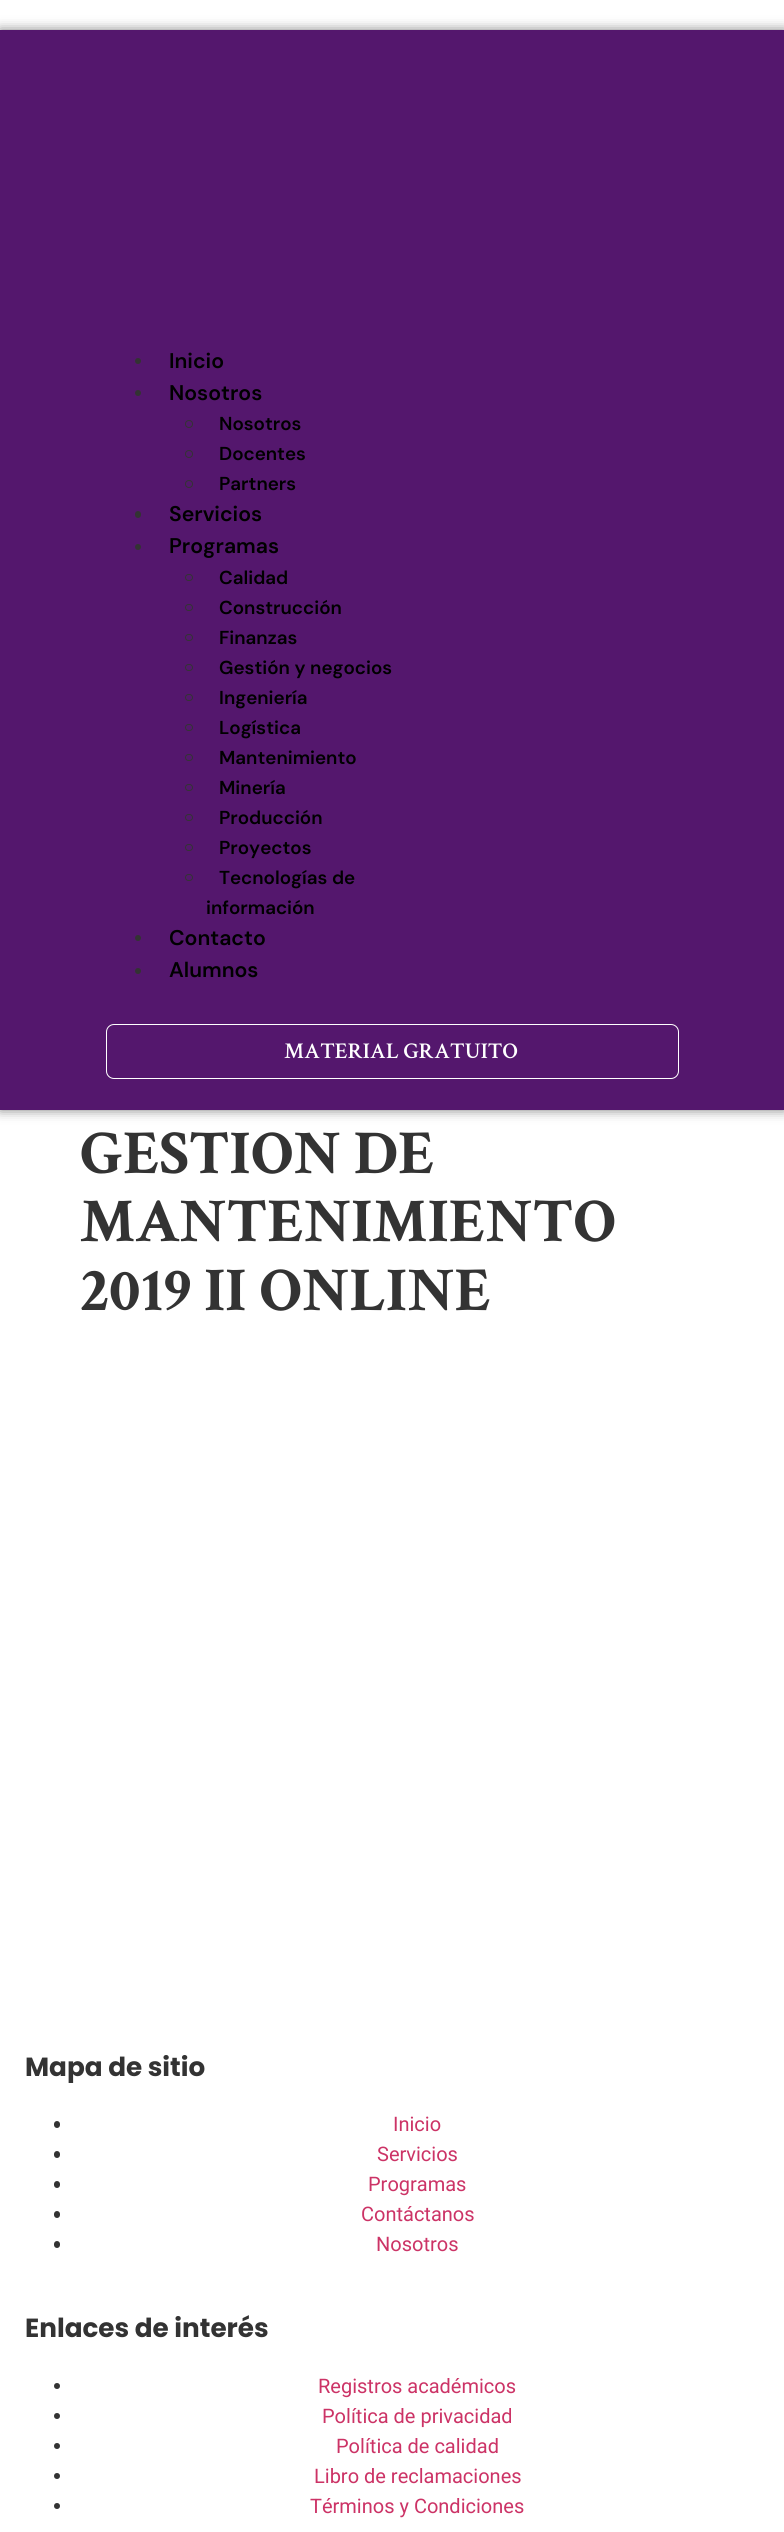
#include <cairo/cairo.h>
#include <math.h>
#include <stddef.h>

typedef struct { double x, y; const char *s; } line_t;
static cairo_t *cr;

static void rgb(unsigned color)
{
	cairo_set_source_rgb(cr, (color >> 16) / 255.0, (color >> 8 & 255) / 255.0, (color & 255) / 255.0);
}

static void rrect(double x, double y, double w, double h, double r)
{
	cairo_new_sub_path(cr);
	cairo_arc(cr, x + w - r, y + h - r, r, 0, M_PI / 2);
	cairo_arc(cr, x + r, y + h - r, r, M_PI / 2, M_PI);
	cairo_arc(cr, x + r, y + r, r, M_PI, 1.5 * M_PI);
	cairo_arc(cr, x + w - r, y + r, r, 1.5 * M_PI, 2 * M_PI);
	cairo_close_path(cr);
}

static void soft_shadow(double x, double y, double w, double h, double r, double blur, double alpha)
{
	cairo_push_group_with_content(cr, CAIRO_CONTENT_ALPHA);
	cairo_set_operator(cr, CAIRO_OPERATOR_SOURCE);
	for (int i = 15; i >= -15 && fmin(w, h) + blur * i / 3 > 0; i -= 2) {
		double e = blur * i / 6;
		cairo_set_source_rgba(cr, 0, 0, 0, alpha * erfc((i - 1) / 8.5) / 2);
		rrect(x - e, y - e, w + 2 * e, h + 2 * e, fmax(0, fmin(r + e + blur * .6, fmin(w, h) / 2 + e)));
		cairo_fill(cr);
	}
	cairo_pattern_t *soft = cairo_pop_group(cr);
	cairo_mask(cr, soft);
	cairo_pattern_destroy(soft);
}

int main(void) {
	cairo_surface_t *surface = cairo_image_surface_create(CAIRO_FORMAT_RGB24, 784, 2532);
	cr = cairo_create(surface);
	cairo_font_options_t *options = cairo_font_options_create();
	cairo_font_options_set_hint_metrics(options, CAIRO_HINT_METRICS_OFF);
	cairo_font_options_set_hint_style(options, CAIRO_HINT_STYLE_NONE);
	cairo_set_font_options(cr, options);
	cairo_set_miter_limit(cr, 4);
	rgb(0xffffff);
	cairo_paint(cr);
	rgb(0x000000);
	soft_shadow(0, 30, 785, 1080, 0, 6, 0.5);
	rgb(0x54176d);
	cairo_rectangle(cr, 0, 30, 784, 1080);
	cairo_fill(cr);
	rgb(0x333333);
	cairo_arc(cr, 138, 361, 3, 0, 2 * M_PI);
	cairo_fill(cr);
	cairo_arc(cr, 138, 393, 3, 0, 2 * M_PI);
	cairo_fill(cr);
	cairo_arc(cr, 189, 424, 3.5, 0, 2 * M_PI);
	cairo_set_line_width(cr, 1);
	cairo_stroke(cr);
	cairo_arc(cr, 189, 454, 3.5, 0, 2 * M_PI);
	cairo_stroke(cr);
	cairo_arc(cr, 189, 484, 3.5, 0, 2 * M_PI);
	cairo_stroke(cr);
	rrect(135, 511, 6, 7, 3);
	cairo_fill(cr);
	cairo_arc(cr, 138, 547, 3, 0, 2 * M_PI);
	cairo_fill(cr);
	rrect(185.5, 574.5, 7, 6, 3);
	cairo_stroke(cr);
	rrect(185.5, 604.5, 7, 6, 3);
	cairo_stroke(cr);
	rrect(185.5, 634.5, 7, 6, 3);
	cairo_stroke(cr);
	rrect(185.5, 664.5, 7, 6, 3);
	cairo_stroke(cr);
	rrect(185.5, 694.5, 7, 6, 3);
	cairo_stroke(cr);
	rrect(185.5, 724.5, 7, 6, 3);
	cairo_stroke(cr);
	rrect(185.5, 754.5, 7, 6, 3);
	cairo_stroke(cr);
	rrect(185.5, 784.5, 7, 6, 3);
	cairo_stroke(cr);
	rrect(185.5, 814.5, 7, 6, 3);
	cairo_stroke(cr);
	rrect(185.5, 844.5, 7, 6, 3);
	cairo_stroke(cr);
	rrect(185.5, 874.5, 7, 6, 3);
	cairo_stroke(cr);
	cairo_arc(cr, 138, 938, 3, 0, 2 * M_PI);
	cairo_fill(cr);
	cairo_arc(cr, 138, 971, 3, 0, 2 * M_PI);
	cairo_fill(cr);
	rrect(106.5, 1024.5, 572, 54, 7.5);
	rgb(0xffffff);
	cairo_stroke(cr);
	rgb(0x333333);
	rrect(54, 2121, 6, 7, 3);
	cairo_fill(cr);
	rrect(54, 2151, 6, 7, 3);
	cairo_fill(cr);
	rrect(54, 2181, 6, 7, 3);
	cairo_fill(cr);
	rrect(54, 2211, 6, 7, 3);
	cairo_fill(cr);
	rrect(54, 2241, 6, 7, 3);
	cairo_fill(cr);
	cairo_arc(cr, 57, 2386, 3, 0, 2 * M_PI);
	cairo_fill(cr);
	cairo_arc(cr, 57, 2416, 3, 0, 2 * M_PI);
	cairo_fill(cr);
	cairo_arc(cr, 57, 2446, 3, 0, 2 * M_PI);
	cairo_fill(cr);
	cairo_arc(cr, 57, 2476, 3, 0, 2 * M_PI);
	cairo_fill(cr);
	cairo_arc(cr, 57, 2506, 3, 0, 2 * M_PI);
	cairo_fill(cr);
	cairo_select_font_face(cr, "DM Sans SemiBold", CAIRO_FONT_SLANT_NORMAL, CAIRO_FONT_WEIGHT_NORMAL);
	cairo_set_font_size(cr, 21.25);
	rgb(0x000000);
	cairo_move_to(cr, 169, 368);
	cairo_show_text(cr, "Inicio");
	cairo_move_to(cr, 169, 400);
	cairo_show_text(cr, "Nosotros");
	cairo_select_font_face(cr, "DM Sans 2 SemiBold", CAIRO_FONT_SLANT_NORMAL, CAIRO_FONT_WEIGHT_NORMAL);
	cairo_set_font_size(cr, 18.75);
	{
		static const line_t items[] = {
			{219, 430, "Nosotros"},
			{219, 460, "Docentes"},
			{219, 490, "Partners"},
		};
		for (size_t i = 0; i < sizeof items / sizeof *items; i++) {
			cairo_move_to(cr, items[i].x, items[i].y);
			cairo_show_text(cr, items[i].s);
		}
	}
	cairo_select_font_face(cr, "DM Sans SemiBold", CAIRO_FONT_SLANT_NORMAL, CAIRO_FONT_WEIGHT_NORMAL);
	cairo_set_font_size(cr, 21.25);
	cairo_move_to(cr, 169, 521);
	cairo_show_text(cr, "Servicios");
	cairo_move_to(cr, 169, 553);
	cairo_show_text(cr, "Programas");
	cairo_select_font_face(cr, "DM Sans 2 SemiBold", CAIRO_FONT_SLANT_NORMAL, CAIRO_FONT_WEIGHT_NORMAL);
	cairo_set_font_size(cr, 18.75);
	{
		static const line_t items[] = {
			{219, 584, "Calidad"},
			{219, 614, "Construcción"},
			{219, 644, "Finanzas"},
			{219, 674, "Gestión y negocios"},
			{219, 704, "Ingeniería"},
			{219, 734, "Logística"},
			{219, 764, "Mantenimiento"},
			{219, 794, "Minería"},
			{219, 824, "Producción"},
			{219, 854, "Proyectos"},
			{219, 884, "Tecnologías de"},
			{206, 914, "información"},
		};
		for (size_t i = 0; i < sizeof items / sizeof *items; i++) {
			cairo_move_to(cr, items[i].x, items[i].y);
			cairo_show_text(cr, items[i].s);
		}
	}
	cairo_select_font_face(cr, "DM Sans SemiBold", CAIRO_FONT_SLANT_NORMAL, CAIRO_FONT_WEIGHT_NORMAL);
	cairo_set_font_size(cr, 21.25);
	cairo_move_to(cr, 169, 945);
	cairo_show_text(cr, "Contacto");
	cairo_move_to(cr, 169, 977);
	cairo_show_text(cr, "Alumnos");
	cairo_select_font_face(cr, "Crimson Text SemiBold", CAIRO_FONT_SLANT_NORMAL, CAIRO_FONT_WEIGHT_NORMAL);
	cairo_set_font_size(cr, 22.5);
	rgb(0xffffff);
	cairo_move_to(cr, 284, 1058);
	cairo_show_text(cr, "MATERIAL GRATUITO");
	cairo_select_font_face(cr, "Crimson Text", CAIRO_FONT_SLANT_NORMAL, CAIRO_FONT_WEIGHT_BOLD);
	cairo_set_font_size(cr, 62.5);
	rgb(0x333333);
	{
		static const line_t items[] = {
			{80, 1173, "GESTION DE"},
			{80, 1241, "MANTENIMIENTO"},
			{80, 1310, "2019 II ONLINE"},
		};
		for (size_t i = 0; i < sizeof items / sizeof *items; i++) {
			cairo_move_to(cr, items[i].x, items[i].y);
			cairo_show_text(cr, items[i].s);
		}
	}
	cairo_select_font_face(cr, "Poppins", CAIRO_FONT_SLANT_NORMAL, CAIRO_FONT_WEIGHT_BOLD);
	cairo_set_font_size(cr, 26.25);
	cairo_move_to(cr, 25, 2076);
	cairo_show_text(cr, "Mapa de sitio");
	cairo_select_font_face(cr, "Roboto", CAIRO_FONT_SLANT_NORMAL, CAIRO_FONT_WEIGHT_NORMAL);
	cairo_set_font_size(cr, 20);
	rgb(0xcc3366);
	{
		static const line_t items[] = {
			{393, 2131, "Inicio"},
			{377, 2161, "Servicios"},
			{368, 2191, "Programas"},
			{361, 2221, "Contáctanos"},
			{376, 2251, "Nosotros"},
		};
		for (size_t i = 0; i < sizeof items / sizeof *items; i++) {
			cairo_move_to(cr, items[i].x, items[i].y);
			cairo_show_text(cr, items[i].s);
		}
	}
	cairo_select_font_face(cr, "Poppins", CAIRO_FONT_SLANT_NORMAL, CAIRO_FONT_WEIGHT_BOLD);
	cairo_set_font_size(cr, 26.25);
	rgb(0x333333);
	cairo_move_to(cr, 25, 2337);
	cairo_show_text(cr, "Enlaces de interés");
	cairo_select_font_face(cr, "Roboto", CAIRO_FONT_SLANT_NORMAL, CAIRO_FONT_WEIGHT_NORMAL);
	cairo_set_font_size(cr, 20);
	rgb(0xcc3366);
	{
		static const line_t items[] = {
			{318, 2393, "Registros académicos"},
			{322, 2423, "Política de privacidad"},
			{336, 2453, "Política de calidad"},
			{314, 2483, "Libro de reclamaciones"},
			{310, 2513, "Términos y Condiciones"},
		};
		for (size_t i = 0; i < sizeof items / sizeof *items; i++) {
			cairo_move_to(cr, items[i].x, items[i].y);
			cairo_show_text(cr, items[i].s);
		}
	}
	cairo_surface_write_to_png(surface, "page.png");
	cairo_font_options_destroy(options);
	cairo_destroy(cr);
	cairo_surface_destroy(surface);
	return 0;
}
